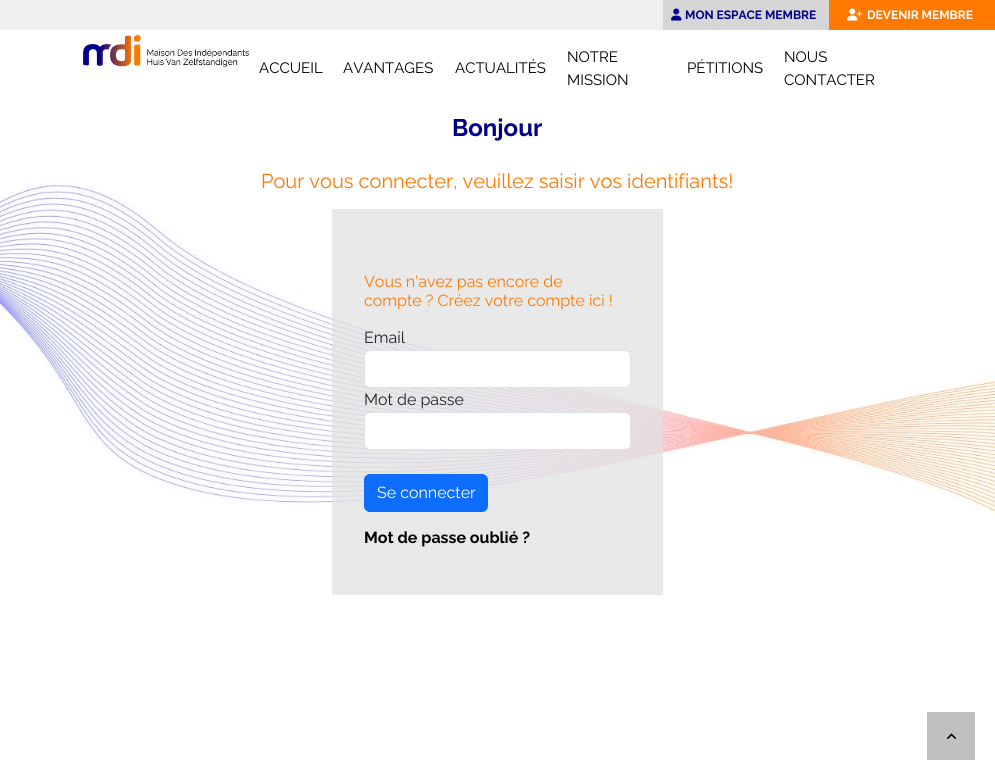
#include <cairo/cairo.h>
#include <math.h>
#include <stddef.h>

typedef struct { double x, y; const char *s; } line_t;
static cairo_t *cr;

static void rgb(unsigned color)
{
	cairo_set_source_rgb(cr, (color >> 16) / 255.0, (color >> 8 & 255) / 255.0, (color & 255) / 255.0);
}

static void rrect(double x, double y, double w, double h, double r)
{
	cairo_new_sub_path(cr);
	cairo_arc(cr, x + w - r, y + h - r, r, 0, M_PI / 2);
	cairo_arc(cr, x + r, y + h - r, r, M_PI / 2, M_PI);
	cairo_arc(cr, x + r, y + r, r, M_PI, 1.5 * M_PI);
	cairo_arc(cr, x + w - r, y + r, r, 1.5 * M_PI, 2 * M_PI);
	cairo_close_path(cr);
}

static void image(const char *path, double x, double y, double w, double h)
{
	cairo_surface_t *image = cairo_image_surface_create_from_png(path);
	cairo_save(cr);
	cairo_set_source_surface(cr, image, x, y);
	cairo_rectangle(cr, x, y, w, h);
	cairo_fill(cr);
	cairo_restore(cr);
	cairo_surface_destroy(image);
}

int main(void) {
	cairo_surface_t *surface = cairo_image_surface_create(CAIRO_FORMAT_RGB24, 995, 780);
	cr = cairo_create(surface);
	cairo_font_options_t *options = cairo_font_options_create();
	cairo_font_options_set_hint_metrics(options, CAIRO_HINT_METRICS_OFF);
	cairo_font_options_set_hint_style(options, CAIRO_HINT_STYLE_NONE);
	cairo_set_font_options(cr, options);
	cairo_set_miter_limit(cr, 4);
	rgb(0xffffff);
	cairo_paint(cr);
	rgb(0xf0f0f0);
	cairo_rectangle(cr, 0, 0, 663, 30);
	cairo_fill(cr);
	rgb(0xd6d6d6);
	cairo_rectangle(cr, 663, 0, 166, 30);
	cairo_fill(cr);
	image("img/1.png", 671, 8, 11, 13);
	rgb(0xff7800);
	cairo_rectangle(cr, 829, 0, 166, 30);
	cairo_fill(cr);
	image("img/2.png", 847, 8, 15, 13);
	image("img/3.png", 83, 35, 166, 32);
	image("img/4.png", 0, 184, 995, 331);
	cairo_set_source_rgba(cr, 0.878, 0.878, 0.878, 0.71);
	cairo_rectangle(cr, 332, 209, 331, 386);
	cairo_fill(cr);
	rgb(0xffffff);
	rrect(364.5, 350.5, 266, 37, 5.5);
	cairo_fill_preserve(cr);
	rgb(0xdee2e6);
	cairo_set_line_width(cr, 1);
	cairo_stroke(cr);
	rgb(0xffffff);
	rrect(364.5, 412.5, 266, 37, 5.5);
	cairo_fill_preserve(cr);
	rgb(0xdee2e6);
	cairo_stroke(cr);
	rgb(0x0d6efd);
	rrect(364.5, 474.5, 123, 37, 5.5);
	cairo_fill_preserve(cr);
	cairo_stroke(cr);
	rgb(0xc0c0c0);
	cairo_rectangle(cr, 927, 712, 48, 48);
	cairo_fill(cr);
	image("img/5.png", 946, 733, 11, 7);
	cairo_select_font_face(cr, "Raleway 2 Thin", CAIRO_FONT_SLANT_NORMAL, CAIRO_FONT_WEIGHT_NORMAL);
	cairo_set_font_size(cr, 12);
	rgb(0x00008b);
	cairo_move_to(cr, 685, 19);
	cairo_show_text(cr, "MON ESPACE MEMBRE");
	rgb(0xffffff);
	cairo_move_to(cr, 867, 19);
	cairo_show_text(cr, "DEVENIR MEMBRE");
	cairo_select_font_face(cr, "Raleway Thin", CAIRO_FONT_SLANT_NORMAL, CAIRO_FONT_WEIGHT_NORMAL);
	cairo_set_font_size(cr, 15);
	rgb(0x000000);
	{
		static const line_t items[] = {
			{259, 73, "ACCUEIL"},
			{343, 73, "AVANTAGES"},
			{455, 73, "ACTUALITÉS"},
			{567, 62, "NOTRE"},
			{567, 85, "MISSION"},
			{687, 73, "PÉTITIONS"},
			{784, 62, "NOUS"},
			{784, 85, "CONTACTER"},
		};
		for (size_t i = 0; i < sizeof items / sizeof *items; i++) {
			cairo_move_to(cr, items[i].x, items[i].y);
			cairo_show_text(cr, items[i].s);
		}
	}
	cairo_select_font_face(cr, "Raleway 2 Thin", CAIRO_FONT_SLANT_NORMAL, CAIRO_FONT_WEIGHT_NORMAL);
	cairo_set_font_size(cr, 24);
	rgb(0x00008b);
	cairo_move_to(cr, 452, 136);
	cairo_show_text(cr, "Bonjour");
	cairo_select_font_face(cr, "Raleway Thin", CAIRO_FONT_SLANT_NORMAL, CAIRO_FONT_WEIGHT_NORMAL);
	cairo_set_font_size(cr, 20);
	rgb(0xff7800);
	cairo_move_to(cr, 261, 188);
	cairo_show_text(cr, "Pour vous connecter, veuillez saisir vos identifiants!");
	cairo_set_font_size(cr, 16);
	cairo_move_to(cr, 364, 287);
	cairo_show_text(cr, "Vous n'avez pas encore de");
	cairo_move_to(cr, 364, 306);
	cairo_show_text(cr, "compte ? Créez votre compte ici !");
	rgb(0x212529);
	cairo_move_to(cr, 364, 343);
	cairo_show_text(cr, "Email");
	cairo_move_to(cr, 364, 405);
	cairo_show_text(cr, "Mot de passe");
	rgb(0xffffff);
	cairo_move_to(cr, 377, 498);
	cairo_show_text(cr, "Se connecter");
	cairo_select_font_face(cr, "Raleway 2 Thin", CAIRO_FONT_SLANT_NORMAL, CAIRO_FONT_WEIGHT_NORMAL);
	rgb(0x000000);
	cairo_move_to(cr, 364, 543);
	cairo_show_text(cr, "Mot de passe oublié ?");
	cairo_surface_write_to_png(surface, "page.png");
	cairo_font_options_destroy(options);
	cairo_destroy(cr);
	cairo_surface_destroy(surface);
	return 0;
}
